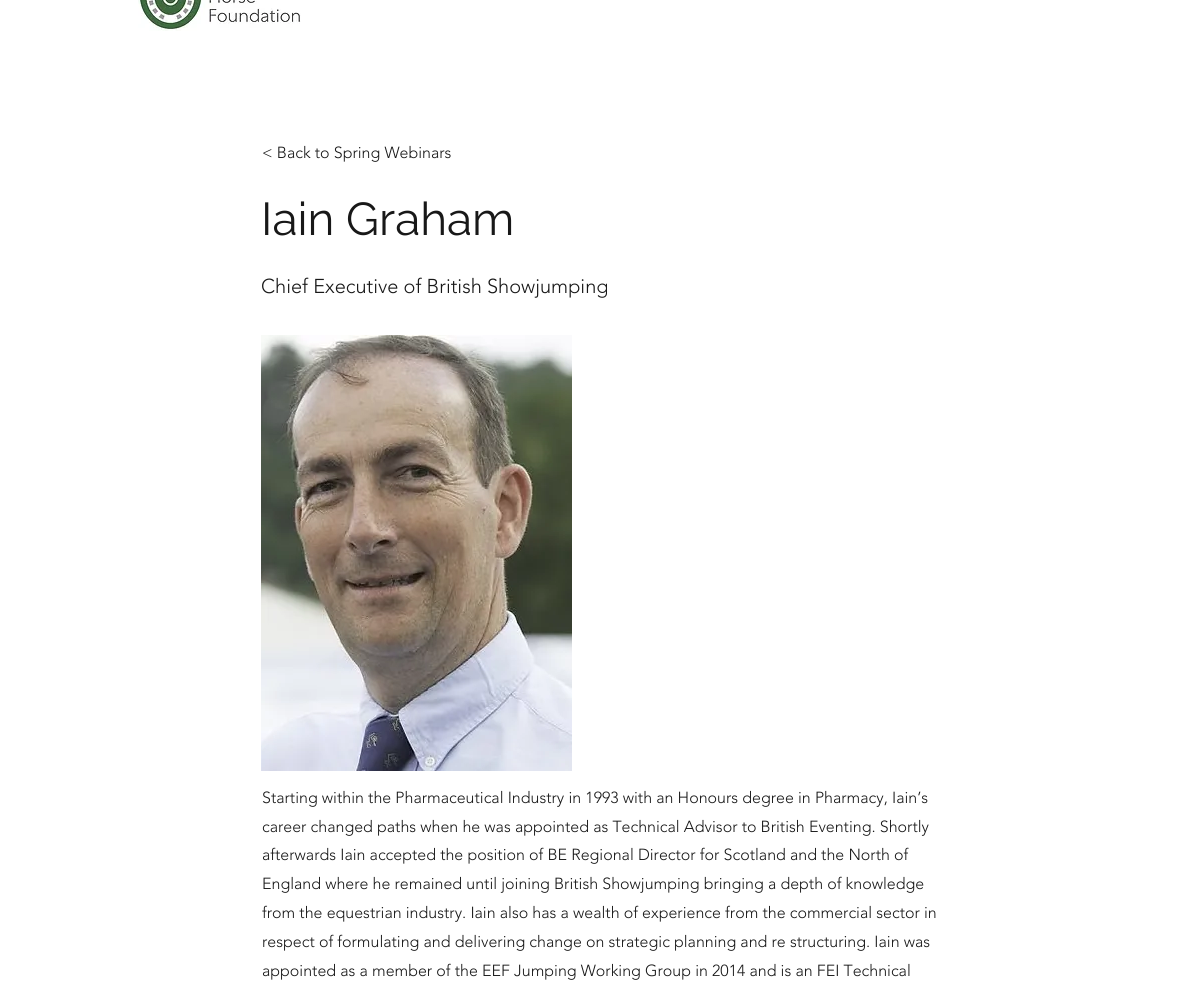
#include <cairo/cairo.h>
#include <math.h>
#include <stddef.h>

typedef struct { double x, y; const char *s; } line_t;
static cairo_t *cr;

static void rgb(unsigned color)
{
	cairo_set_source_rgb(cr, (color >> 16) / 255.0, (color >> 8 & 255) / 255.0, (color & 255) / 255.0);
}

static void image(const char *path, double x, double y, double w, double h)
{
	cairo_surface_t *image = cairo_image_surface_create_from_png(path);
	cairo_save(cr);
	cairo_set_source_surface(cr, image, x, y);
	cairo_rectangle(cr, x, y, w, h);
	cairo_fill(cr);
	cairo_restore(cr);
	cairo_surface_destroy(image);
}

int main(void) {
	cairo_surface_t *surface = cairo_image_surface_create(CAIRO_FORMAT_RGB24, 1202, 997);
	cr = cairo_create(surface);
	cairo_font_options_t *options = cairo_font_options_create();
	cairo_font_options_set_hint_metrics(options, CAIRO_HINT_METRICS_OFF);
	cairo_font_options_set_hint_style(options, CAIRO_HINT_STYLE_NONE);
	cairo_set_font_options(cr, options);
	cairo_set_miter_limit(cr, 4);
	rgb(0xffffff);
	cairo_paint(cr);
	image("img/1.png", 138, 0, 163, 31);
	image("img/2.png", 261, 335, 311, 436);
	cairo_select_font_face(cr, "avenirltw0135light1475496 Light", CAIRO_FONT_SLANT_NORMAL, CAIRO_FONT_WEIGHT_NORMAL);
	cairo_set_font_size(cr, 16);
	rgb(0x181818);
	cairo_move_to(cr, 262, 158);
	cairo_show_text(cr, "< Back to Spring Webinars");
	cairo_select_font_face(cr, "Raleway", CAIRO_FONT_SLANT_NORMAL, CAIRO_FONT_WEIGHT_NORMAL);
	cairo_set_font_size(cr, 46);
	cairo_move_to(cr, 261, 235);
	cairo_show_text(cr, "Iain Graham");
	cairo_select_font_face(cr, "avenirltw0135light1475496 Light", CAIRO_FONT_SLANT_NORMAL, CAIRO_FONT_WEIGHT_NORMAL);
	cairo_set_font_size(cr, 20);
	cairo_move_to(cr, 261, 293);
	cairo_show_text(cr, "Chief Executive of British Showjumping");
	cairo_set_font_size(cr, 16);
	{
		static const line_t items[] = {
			{262, 803, "Starting within the Pharmaceutical Industry in 1993 with an Honours degree in Pharmacy, Iain’s"},
			{262, 832, "career changed paths when he was appointed as Technical Advisor to British Eventing. Shortly"},
			{262, 860, "afterwards Iain accepted the position of BE Regional Director for Scotland and the North of"},
			{262, 889, "England where he remained until joining British Showjumping bringing a depth of knowledge"},
			{262, 918, "from the equestrian industry. Iain also has a wealth of experience from the commercial sector in"},
			{262, 947, "respect of formulating and delivering change on strategic planning and re structuring. Iain was"},
			{262, 976, "appointed as a member of the EEF Jumping Working Group in 2014 and is an FEI Technical"},
		};
		for (size_t i = 0; i < sizeof items / sizeof *items; i++) {
			cairo_move_to(cr, items[i].x, items[i].y);
			cairo_show_text(cr, items[i].s);
		}
	}
	cairo_surface_write_to_png(surface, "page.png");
	cairo_font_options_destroy(options);
	cairo_destroy(cr);
	cairo_surface_destroy(surface);
	return 0;
}
